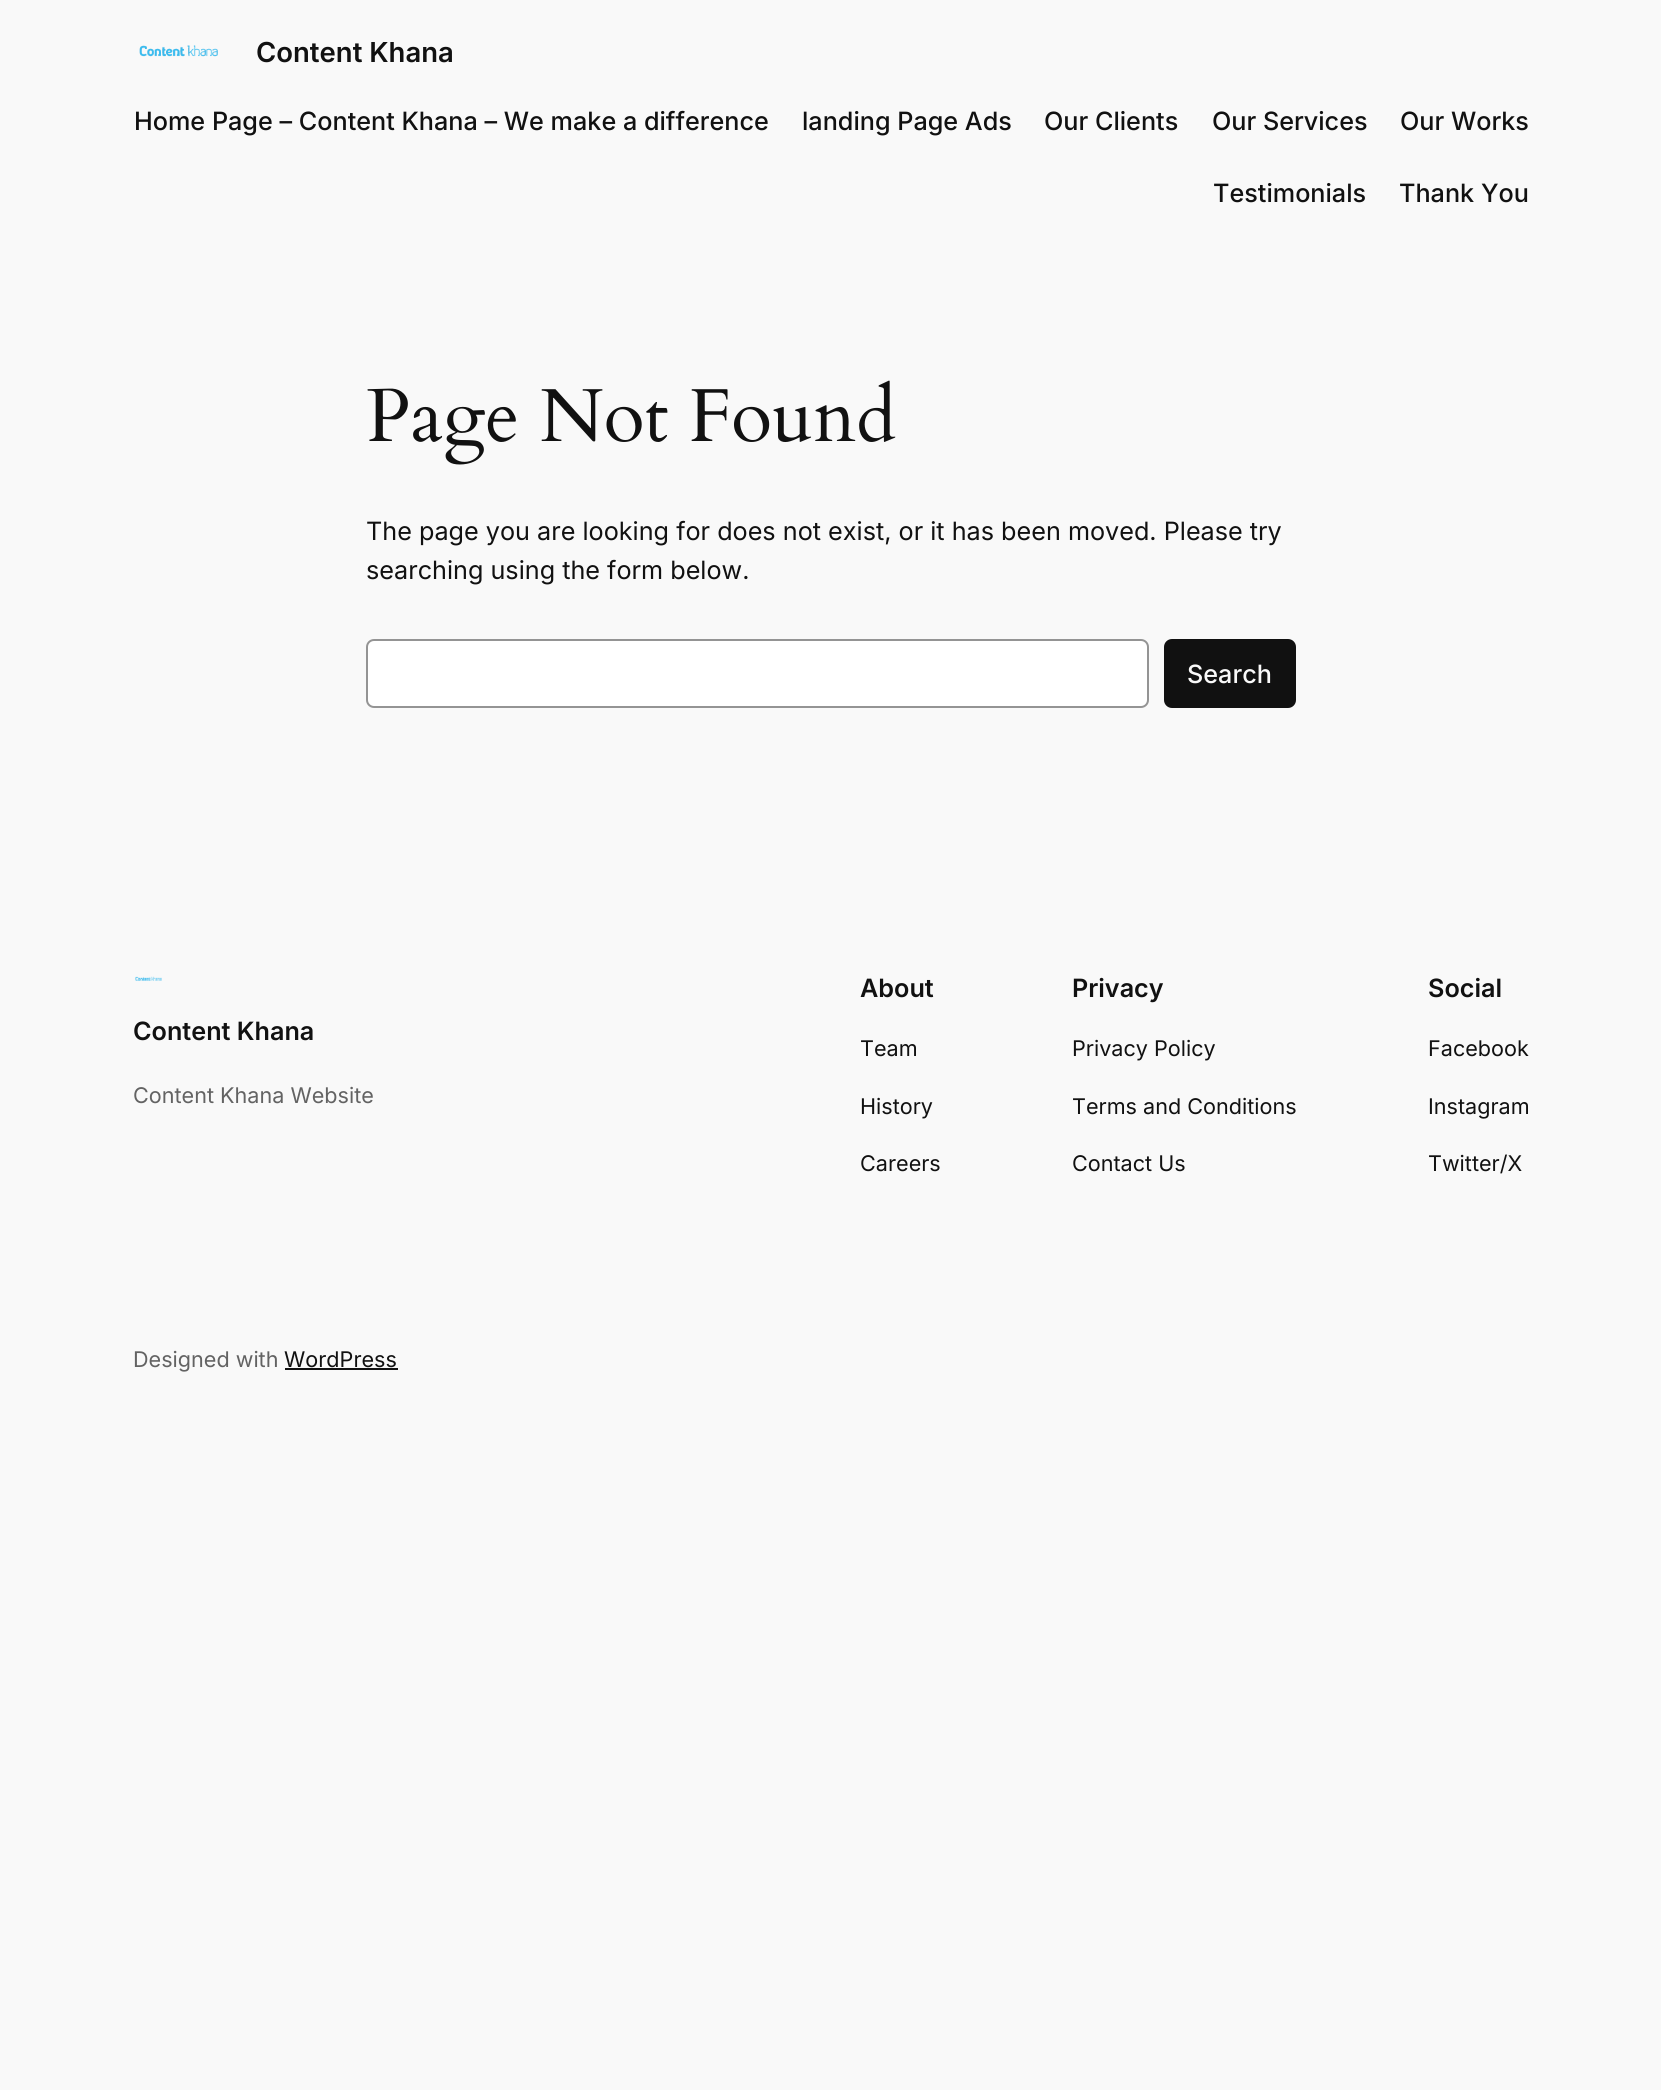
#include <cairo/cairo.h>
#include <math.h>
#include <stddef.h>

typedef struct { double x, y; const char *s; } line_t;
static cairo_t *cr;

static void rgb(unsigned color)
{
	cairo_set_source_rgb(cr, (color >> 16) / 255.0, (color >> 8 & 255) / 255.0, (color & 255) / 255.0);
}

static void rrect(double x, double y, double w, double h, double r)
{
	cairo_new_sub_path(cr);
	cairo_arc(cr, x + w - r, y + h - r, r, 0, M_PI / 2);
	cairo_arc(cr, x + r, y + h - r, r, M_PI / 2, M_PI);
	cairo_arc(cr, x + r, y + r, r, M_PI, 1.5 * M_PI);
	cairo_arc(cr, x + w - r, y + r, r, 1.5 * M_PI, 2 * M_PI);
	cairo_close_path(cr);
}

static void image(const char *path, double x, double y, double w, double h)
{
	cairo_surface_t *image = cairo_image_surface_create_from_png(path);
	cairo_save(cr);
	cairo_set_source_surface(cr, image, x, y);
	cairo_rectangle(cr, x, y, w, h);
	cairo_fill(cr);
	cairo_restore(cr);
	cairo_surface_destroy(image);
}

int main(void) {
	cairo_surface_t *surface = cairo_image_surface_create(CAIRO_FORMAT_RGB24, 1661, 2090);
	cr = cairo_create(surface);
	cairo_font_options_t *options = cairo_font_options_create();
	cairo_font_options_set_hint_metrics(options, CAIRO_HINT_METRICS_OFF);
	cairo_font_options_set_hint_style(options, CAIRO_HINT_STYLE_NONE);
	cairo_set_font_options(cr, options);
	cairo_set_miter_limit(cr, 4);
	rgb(0xf9f9f9);
	cairo_paint(cr);
	image("img/1.png", 139, 45, 79, 12);
	rgb(0xffffff);
	rrect(367, 640, 781, 67, 7);
	cairo_fill_preserve(cr);
	rgb(0x949494);
	cairo_stroke(cr);
	rgb(0x111111);
	rrect(1164, 639, 132, 69, 8);
	cairo_fill(cr);
	image("img/2.png", 135, 976, 27, 5);
	cairo_rectangle(cr, 285, 1368, 113, 2);
	cairo_fill(cr);
	cairo_select_font_face(cr, "Inter SemiBold", CAIRO_FONT_SLANT_NORMAL, CAIRO_FONT_WEIGHT_NORMAL);
	cairo_set_font_size(cr, 27.5);
	cairo_move_to(cr, 256, 62);
	cairo_show_text(cr, "Content Khana");
	cairo_select_font_face(cr, "Inter Medium", CAIRO_FONT_SLANT_NORMAL, CAIRO_FONT_WEIGHT_NORMAL);
	cairo_set_font_size(cr, 25.2);
	{
		static const line_t items[] = {
			{134, 130, "Home Page – Content Khana – We make a difference"},
			{802, 130, "landing Page Ads"},
			{1044, 130, "Our Clients"},
			{1212, 130, "Our Services"},
			{1400, 130, "Our Works"},
			{1213, 202, "Testimonials"},
			{1399, 202, "Thank You"},
		};
		for (size_t i = 0; i < sizeof items / sizeof *items; i++) {
			cairo_move_to(cr, items[i].x, items[i].y);
			cairo_show_text(cr, items[i].s);
		}
	}
	cairo_select_font_face(cr, "Cardo", CAIRO_FONT_SLANT_NORMAL, CAIRO_FONT_WEIGHT_NORMAL);
	cairo_set_font_size(cr, 75.25);
	cairo_move_to(cr, 366, 441);
	cairo_show_text(cr, "Page Not Found");
	cairo_select_font_face(cr, "Inter", CAIRO_FONT_SLANT_NORMAL, CAIRO_FONT_WEIGHT_NORMAL);
	cairo_set_font_size(cr, 25.2);
	cairo_move_to(cr, 366, 540);
	cairo_show_text(cr, "The page you are looking for does not exist, or it has been moved. Please try");
	cairo_move_to(cr, 366, 579);
	cairo_show_text(cr, "searching using the form below.");
	cairo_select_font_face(cr, "Inter Medium", CAIRO_FONT_SLANT_NORMAL, CAIRO_FONT_WEIGHT_NORMAL);
	rgb(0xf9f9f9);
	cairo_move_to(cr, 1187, 683);
	cairo_show_text(cr, "Search");
	cairo_select_font_face(cr, "Inter SemiBold", CAIRO_FONT_SLANT_NORMAL, CAIRO_FONT_WEIGHT_NORMAL);
	rgb(0x111111);
	cairo_move_to(cr, 133, 1040);
	cairo_show_text(cr, "Content Khana");
	cairo_select_font_face(cr, "Inter", CAIRO_FONT_SLANT_NORMAL, CAIRO_FONT_WEIGHT_NORMAL);
	cairo_set_font_size(cr, 21.6);
	rgb(0x636363);
	cairo_move_to(cr, 133, 1103);
	cairo_show_text(cr, "Content Khana Website");
	cairo_select_font_face(cr, "Inter SemiBold", CAIRO_FONT_SLANT_NORMAL, CAIRO_FONT_WEIGHT_NORMAL);
	cairo_set_font_size(cr, 25.2);
	rgb(0x111111);
	cairo_move_to(cr, 860, 997);
	cairo_show_text(cr, "About");
	cairo_select_font_face(cr, "Inter", CAIRO_FONT_SLANT_NORMAL, CAIRO_FONT_WEIGHT_NORMAL);
	cairo_set_font_size(cr, 21.6);
	{
		static const line_t items[] = {
			{860, 1056, "Team"},
			{860, 1114, "History"},
			{860, 1171, "Careers"},
		};
		for (size_t i = 0; i < sizeof items / sizeof *items; i++) {
			cairo_move_to(cr, items[i].x, items[i].y);
			cairo_show_text(cr, items[i].s);
		}
	}
	cairo_select_font_face(cr, "Inter SemiBold", CAIRO_FONT_SLANT_NORMAL, CAIRO_FONT_WEIGHT_NORMAL);
	cairo_set_font_size(cr, 25.2);
	cairo_move_to(cr, 1072, 997);
	cairo_show_text(cr, "Privacy");
	cairo_select_font_face(cr, "Inter", CAIRO_FONT_SLANT_NORMAL, CAIRO_FONT_WEIGHT_NORMAL);
	cairo_set_font_size(cr, 21.6);
	{
		static const line_t items[] = {
			{1072, 1056, "Privacy Policy"},
			{1072, 1114, "Terms and Conditions"},
			{1072, 1171, "Contact Us"},
		};
		for (size_t i = 0; i < sizeof items / sizeof *items; i++) {
			cairo_move_to(cr, items[i].x, items[i].y);
			cairo_show_text(cr, items[i].s);
		}
	}
	cairo_select_font_face(cr, "Inter SemiBold", CAIRO_FONT_SLANT_NORMAL, CAIRO_FONT_WEIGHT_NORMAL);
	cairo_set_font_size(cr, 25.2);
	cairo_move_to(cr, 1428, 997);
	cairo_show_text(cr, "Social");
	cairo_select_font_face(cr, "Inter", CAIRO_FONT_SLANT_NORMAL, CAIRO_FONT_WEIGHT_NORMAL);
	cairo_set_font_size(cr, 21.6);
	{
		static const line_t items[] = {
			{1428, 1056, "Facebook"},
			{1428, 1114, "Instagram"},
			{1428, 1171, "Twitter/X"},
		};
		for (size_t i = 0; i < sizeof items / sizeof *items; i++) {
			cairo_move_to(cr, items[i].x, items[i].y);
			cairo_show_text(cr, items[i].s);
		}
	}
	rgb(0x636363);
	cairo_move_to(cr, 133, 1367);
	cairo_show_text(cr, "Designed with");
	rgb(0x111111);
	cairo_move_to(cr, 284, 1367);
	cairo_show_text(cr, "WordPress");
	cairo_surface_write_to_png(surface, "page.png");
	cairo_font_options_destroy(options);
	cairo_destroy(cr);
	cairo_surface_destroy(surface);
	return 0;
}
